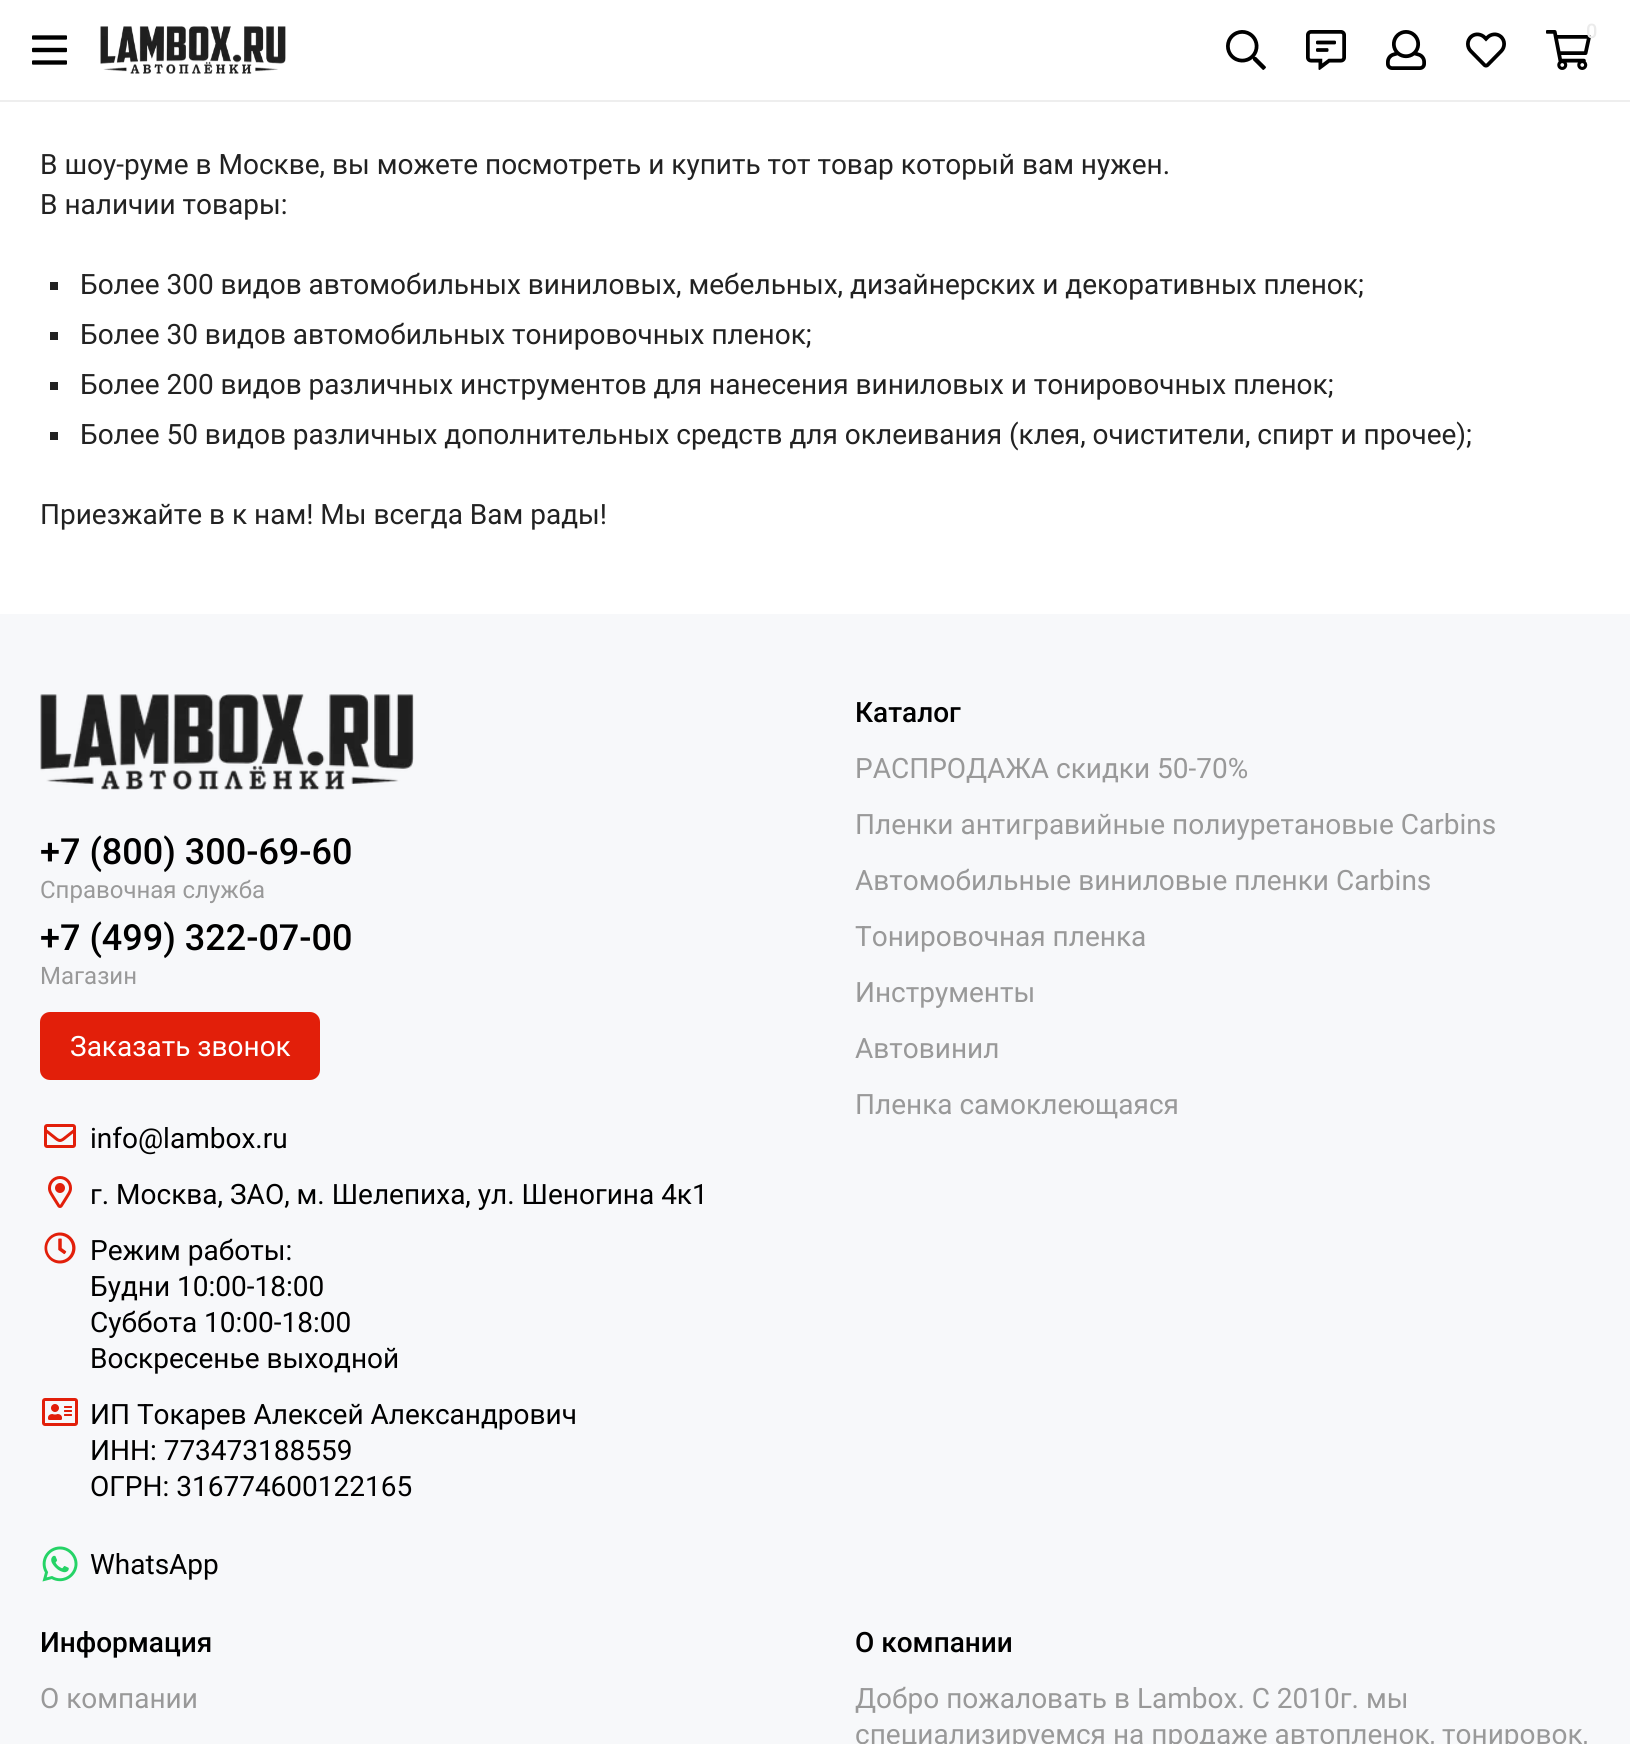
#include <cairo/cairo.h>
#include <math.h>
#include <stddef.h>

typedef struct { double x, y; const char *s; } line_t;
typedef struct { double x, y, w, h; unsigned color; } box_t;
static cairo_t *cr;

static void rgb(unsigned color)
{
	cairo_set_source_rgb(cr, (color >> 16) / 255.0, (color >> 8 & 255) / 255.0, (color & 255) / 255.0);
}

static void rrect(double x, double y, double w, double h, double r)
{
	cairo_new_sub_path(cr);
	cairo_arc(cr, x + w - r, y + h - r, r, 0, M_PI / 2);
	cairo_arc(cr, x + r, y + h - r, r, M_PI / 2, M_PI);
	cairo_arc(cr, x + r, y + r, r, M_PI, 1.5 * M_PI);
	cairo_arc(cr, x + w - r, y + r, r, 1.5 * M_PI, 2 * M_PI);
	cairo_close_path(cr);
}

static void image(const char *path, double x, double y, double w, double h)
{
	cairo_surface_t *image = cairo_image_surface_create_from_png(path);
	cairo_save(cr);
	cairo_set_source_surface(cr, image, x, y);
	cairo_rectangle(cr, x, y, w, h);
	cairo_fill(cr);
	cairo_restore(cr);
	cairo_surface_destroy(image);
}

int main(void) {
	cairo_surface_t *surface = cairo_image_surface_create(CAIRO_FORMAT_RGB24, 1630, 1744);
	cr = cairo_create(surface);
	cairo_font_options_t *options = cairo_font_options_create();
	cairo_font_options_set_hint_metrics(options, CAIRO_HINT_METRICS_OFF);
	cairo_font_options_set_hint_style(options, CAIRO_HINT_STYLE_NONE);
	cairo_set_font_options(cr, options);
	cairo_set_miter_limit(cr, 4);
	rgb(0xffffff);
	cairo_paint(cr);
	rgb(0xeeeeee);
	cairo_rectangle(cr, 0, 100, 1630, 2);
	cairo_fill(cr);
	image("img/1.png", 32, 35, 35, 30);
	image("img/2.png", 100, 26, 186, 48);
	image("img/3.png", 1226, 30, 40, 40);
	image("img/4.png", 1306, 30, 40, 40);
	image("img/5.png", 1386, 30, 40, 40);
	image("img/6.png", 1466, 32, 40, 36);
	image("img/7.png", 1546, 30, 45, 40);
	{
		static const box_t items[] = {
			{50, 282, 8, 8, 0x222222},
			{50, 332, 8, 8, 0x222222},
			{50, 382, 8, 8, 0x222222},
			{50, 432, 8, 8, 0x222222},
			{0, 614, 1630, 1130, 0xf7f8fa},
		};
		for (size_t i = 0; i < sizeof items / sizeof *items; i++) {
			rgb(items[i].color);
			cairo_rectangle(cr, items[i].x, items[i].y, items[i].w, items[i].h);
			cairo_fill(cr);
		}
	}
	image("img/8.png", 40, 694, 374, 96);
	rgb(0xe21f0a);
	rrect(40, 1012, 280, 68, 10);
	cairo_fill(cr);
	image("img/9.png", 44, 1124, 32, 24);
	image("img/10.png", 48, 1176, 24, 32);
	image("img/11.png", 44, 1232, 32, 32);
	image("img/12.png", 42, 1398, 36, 28);
	image("img/13.png", 42, 1546, 36, 36);
	cairo_select_font_face(cr, "Roboto Medium", CAIRO_FONT_SLANT_NORMAL, CAIRO_FONT_WEIGHT_NORMAL);
	cairo_set_font_size(cr, 20);
	rgb(0xebebeb);
	cairo_move_to(cr, 1586, 38);
	cairo_show_text(cr, "0");
	cairo_select_font_face(cr, "Roboto", CAIRO_FONT_SLANT_NORMAL, CAIRO_FONT_WEIGHT_NORMAL);
	cairo_set_font_size(cr, 28);
	rgb(0x222222);
	{
		static const line_t items[] = {
			{40, 174, "В шоу-руме в Москве, вы можете посмотреть и купить тот товар который вам нужен."},
			{40, 214, "В наличии товары:"},
			{80, 294, "Более 300 видов автомобильных виниловых, мебельных, дизайнерских и декоративных пленок;"},
			{80, 344, "Более 30 видов автомобильных тонировочных пленок;"},
			{80, 394, "Более 200 видов различных инструментов для нанесения виниловых и тонировочных пленок;"},
			{80, 444, "Более 50 видов различных дополнительных средств для оклеивания (клея, очистители, спирт и прочее);"},
			{40, 524, "Приезжайте в к нам! Мы всегда Вам рады!"},
		};
		for (size_t i = 0; i < sizeof items / sizeof *items; i++) {
			cairo_move_to(cr, items[i].x, items[i].y);
			cairo_show_text(cr, items[i].s);
		}
	}
	cairo_select_font_face(cr, "Roboto Medium", CAIRO_FONT_SLANT_NORMAL, CAIRO_FONT_WEIGHT_NORMAL);
	cairo_set_font_size(cr, 36);
	rgb(0x000000);
	cairo_move_to(cr, 40, 864);
	cairo_show_text(cr, "+7 (800) 300-69-60");
	cairo_select_font_face(cr, "Roboto", CAIRO_FONT_SLANT_NORMAL, CAIRO_FONT_WEIGHT_NORMAL);
	cairo_set_font_size(cr, 24);
	rgb(0x999999);
	cairo_move_to(cr, 40, 898);
	cairo_show_text(cr, "Cправочная служба");
	cairo_select_font_face(cr, "Roboto Medium", CAIRO_FONT_SLANT_NORMAL, CAIRO_FONT_WEIGHT_NORMAL);
	cairo_set_font_size(cr, 36);
	rgb(0x000000);
	cairo_move_to(cr, 40, 950);
	cairo_show_text(cr, "+7 (499) 322-07-00");
	cairo_select_font_face(cr, "Roboto", CAIRO_FONT_SLANT_NORMAL, CAIRO_FONT_WEIGHT_NORMAL);
	cairo_set_font_size(cr, 24);
	rgb(0x999999);
	cairo_move_to(cr, 40, 984);
	cairo_show_text(cr, "Магазин");
	cairo_set_font_size(cr, 28);
	rgb(0xffffff);
	cairo_move_to(cr, 70, 1056);
	cairo_show_text(cr, "Заказать звонок");
	rgb(0x000000);
	{
		static const line_t items[] = {
			{90, 1148, "info@lambox.ru"},
			{90, 1204, "г. Москва, ЗАО, м. Шелепиха, ул. Шеногина 4к1"},
			{90, 1260, "Режим работы:"},
			{90, 1296, "Будни 10:00-18:00"},
			{90, 1332, "Суббота 10:00-18:00"},
			{90, 1368, "Воскресенье выходной"},
			{90, 1424, "ИП Токарев Алексей Александрович"},
			{90, 1460, "ИНН: 773473188559"},
			{90, 1496, "ОГРН: 316774600122165"},
			{90, 1574, "WhatsApp"},
		};
		for (size_t i = 0; i < sizeof items / sizeof *items; i++) {
			cairo_move_to(cr, items[i].x, items[i].y);
			cairo_show_text(cr, items[i].s);
		}
	}
	cairo_select_font_face(cr, "Roboto Medium", CAIRO_FONT_SLANT_NORMAL, CAIRO_FONT_WEIGHT_NORMAL);
	cairo_move_to(cr, 855, 722);
	cairo_show_text(cr, "Каталог");
	cairo_select_font_face(cr, "Roboto", CAIRO_FONT_SLANT_NORMAL, CAIRO_FONT_WEIGHT_NORMAL);
	rgb(0x999999);
	{
		static const line_t items[] = {
			{855, 778, "РАСПРОДАЖА скидки 50-70%"},
			{855, 834, "Пленки антигравийные полиуретановые Carbins"},
			{855, 890, "Автомобильные виниловые пленки Carbins"},
			{855, 946, "Тонировочная пленка"},
			{855, 1002, "Инструменты"},
			{855, 1058, "Автовинил"},
			{855, 1114, "Пленка самоклеющаяся"},
		};
		for (size_t i = 0; i < sizeof items / sizeof *items; i++) {
			cairo_move_to(cr, items[i].x, items[i].y);
			cairo_show_text(cr, items[i].s);
		}
	}
	cairo_select_font_face(cr, "Roboto Medium", CAIRO_FONT_SLANT_NORMAL, CAIRO_FONT_WEIGHT_NORMAL);
	rgb(0x000000);
	cairo_move_to(cr, 40, 1652);
	cairo_show_text(cr, "Информация");
	cairo_select_font_face(cr, "Roboto", CAIRO_FONT_SLANT_NORMAL, CAIRO_FONT_WEIGHT_NORMAL);
	rgb(0x999999);
	cairo_move_to(cr, 40, 1708);
	cairo_show_text(cr, "О компании");
	cairo_select_font_face(cr, "Roboto Medium", CAIRO_FONT_SLANT_NORMAL, CAIRO_FONT_WEIGHT_NORMAL);
	rgb(0x000000);
	cairo_move_to(cr, 855, 1652);
	cairo_show_text(cr, "О компании");
	cairo_select_font_face(cr, "Roboto", CAIRO_FONT_SLANT_NORMAL, CAIRO_FONT_WEIGHT_NORMAL);
	rgb(0x999999);
	cairo_move_to(cr, 855, 1708);
	cairo_show_text(cr, "Добро пожаловать в Lambox. С 2010г. мы");
	cairo_move_to(cr, 855, 1744);
	cairo_show_text(cr, "специализируемся на продаже автопленок, тонировок,");
	cairo_surface_write_to_png(surface, "page.png");
	cairo_font_options_destroy(options);
	cairo_destroy(cr);
	cairo_surface_destroy(surface);
	return 0;
}
